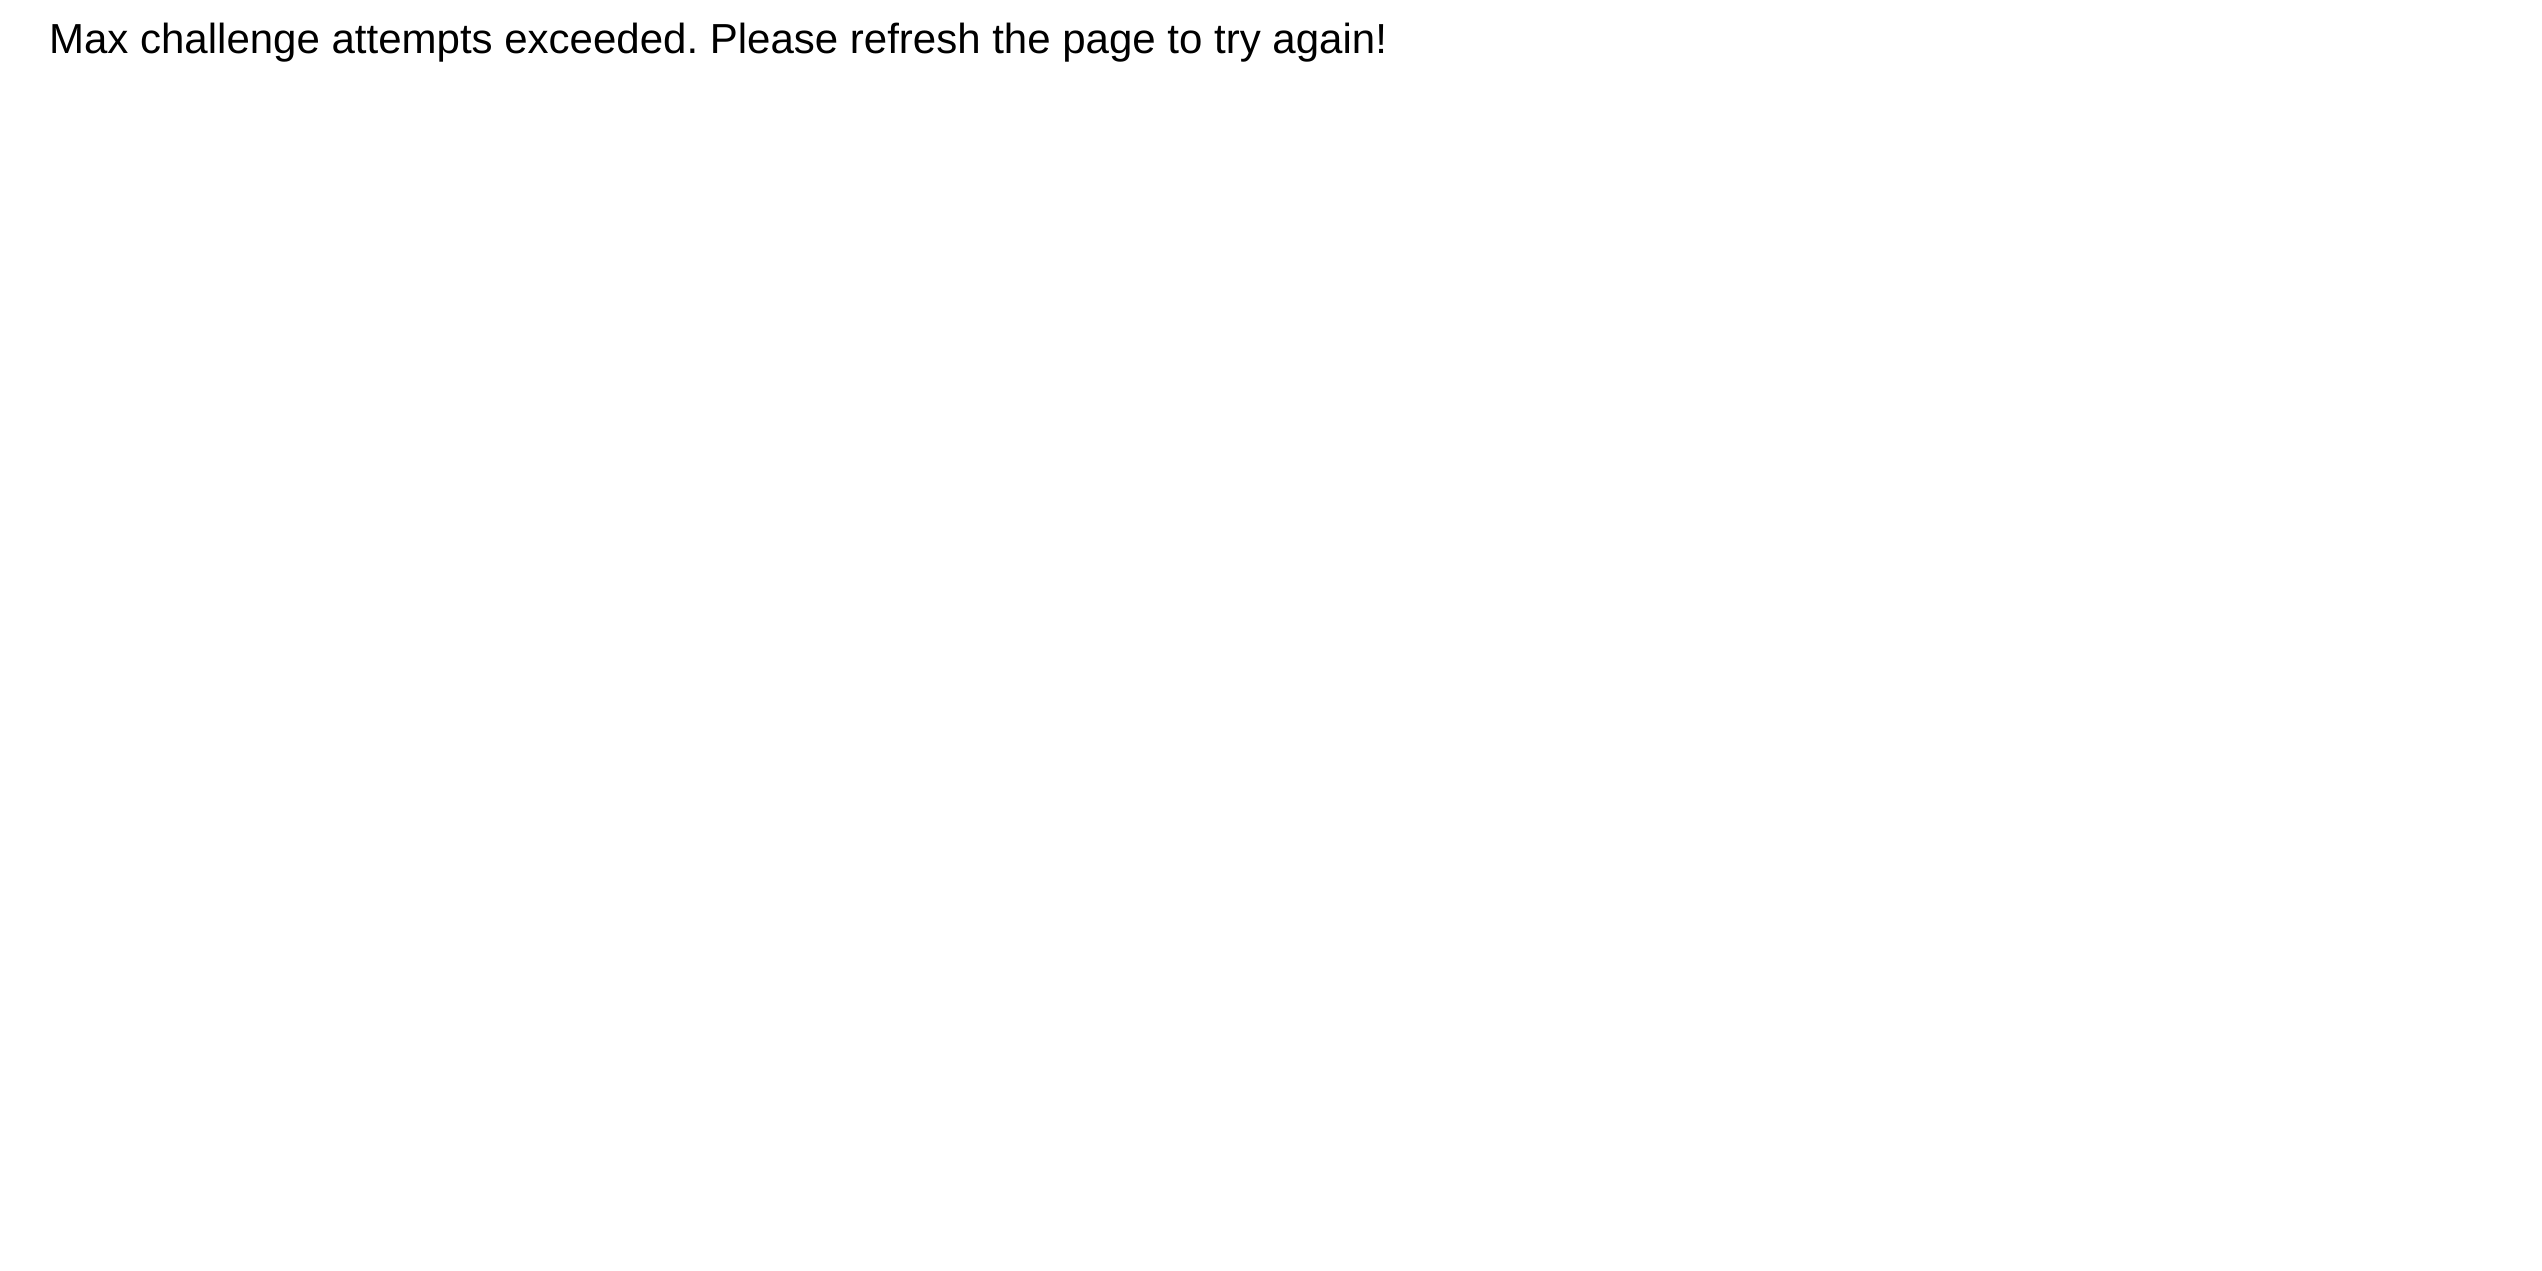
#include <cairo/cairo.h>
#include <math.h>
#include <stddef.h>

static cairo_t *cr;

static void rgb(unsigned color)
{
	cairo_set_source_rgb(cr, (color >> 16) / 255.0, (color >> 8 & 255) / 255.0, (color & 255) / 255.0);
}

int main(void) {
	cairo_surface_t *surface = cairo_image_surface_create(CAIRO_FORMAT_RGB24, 2542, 1271);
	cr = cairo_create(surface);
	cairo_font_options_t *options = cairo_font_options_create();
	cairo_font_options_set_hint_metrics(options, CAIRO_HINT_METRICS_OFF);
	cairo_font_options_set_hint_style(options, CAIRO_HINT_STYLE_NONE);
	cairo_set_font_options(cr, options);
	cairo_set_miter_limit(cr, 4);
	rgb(0xffffff);
	cairo_paint(cr);
	cairo_select_font_face(cr, "Liberation Sans", CAIRO_FONT_SLANT_NORMAL, CAIRO_FONT_WEIGHT_NORMAL);
	cairo_set_font_size(cr, 42);
	rgb(0x000000);
	cairo_move_to(cr, 49, 53);
	cairo_show_text(cr, "Max challenge attempts exceeded. Please refresh the page to try again!");
	cairo_surface_write_to_png(surface, "page.png");
	cairo_font_options_destroy(options);
	cairo_destroy(cr);
	cairo_surface_destroy(surface);
	return 0;
}
